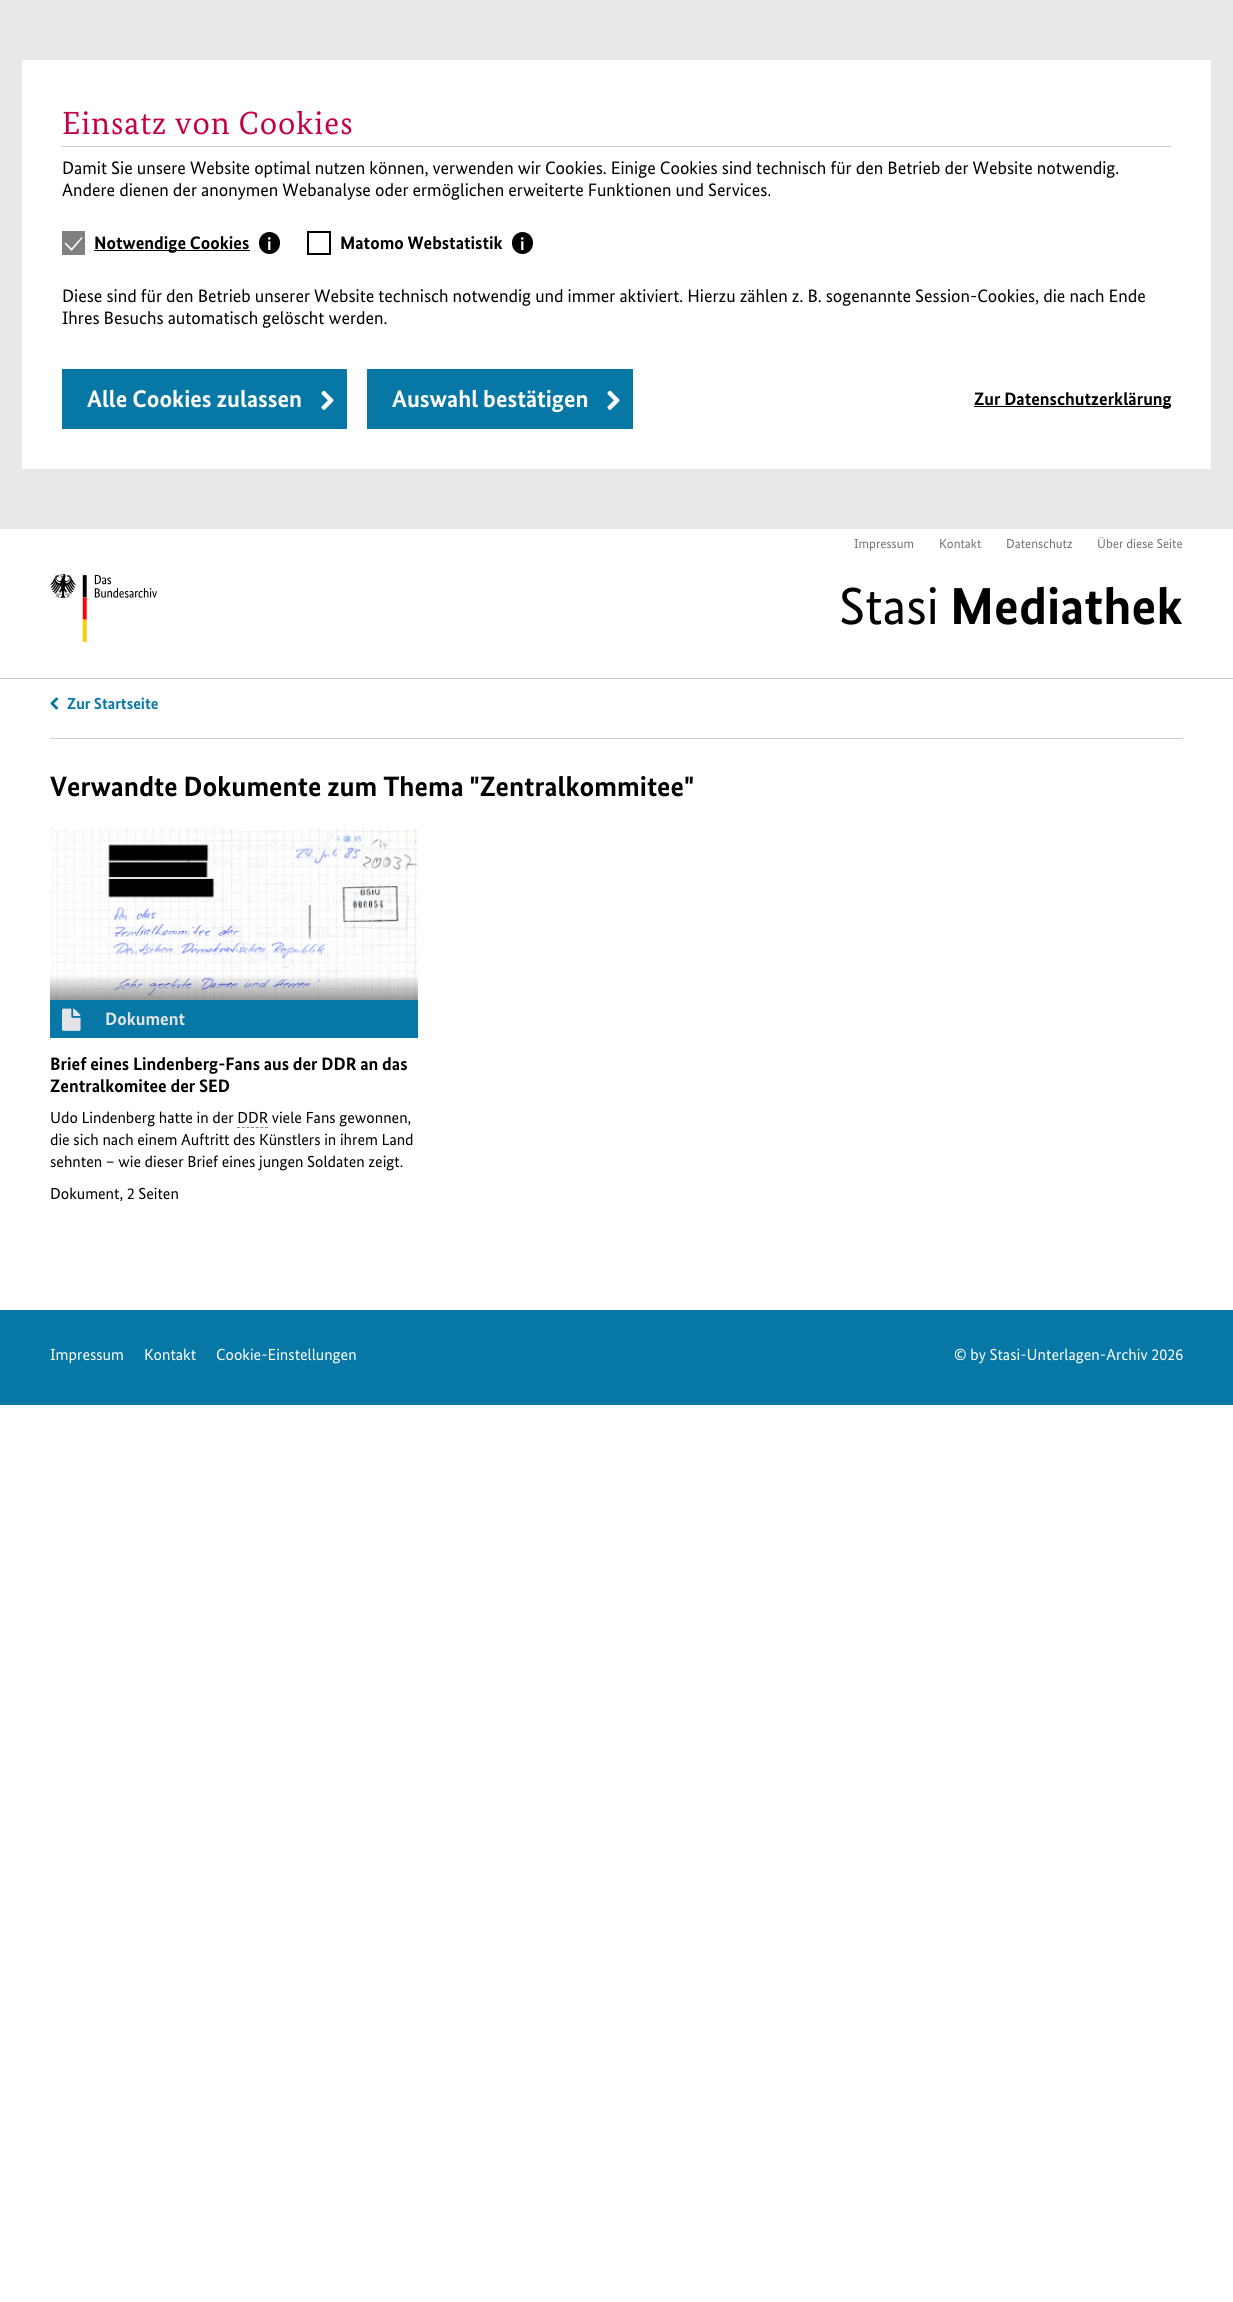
#include <cairo/cairo.h>
#include <math.h>
#include <stddef.h>

typedef struct { double x, y; const char *s; } line_t;
typedef struct { double x, y, w, h; unsigned color; } box_t;
static cairo_t *cr;

static void rgb(unsigned color)
{
	cairo_set_source_rgb(cr, (color >> 16) / 255.0, (color >> 8 & 255) / 255.0, (color & 255) / 255.0);
}

static void tracked(double x, double y, const char *s, double letter, double word)
{
	cairo_move_to(cr, x, y);
	while (*s) {
		char ch[5] = {0};
		int n = 0;
		do ch[n++] = *s++; while ((*s & 0xC0) == 0x80);
		cairo_show_text(cr, ch);
		cairo_rel_move_to(cr, letter + word * (*ch == ' '), 0);
	}
}

static void rrect(double x, double y, double w, double h, double r)
{
	cairo_new_sub_path(cr);
	cairo_arc(cr, x + w - r, y + h - r, r, 0, M_PI / 2);
	cairo_arc(cr, x + r, y + h - r, r, M_PI / 2, M_PI);
	cairo_arc(cr, x + r, y + r, r, M_PI, 1.5 * M_PI);
	cairo_arc(cr, x + w - r, y + r, r, 1.5 * M_PI, 2 * M_PI);
	cairo_close_path(cr);
}

static void image(const char *path, double x, double y, double w, double h)
{
	cairo_surface_t *image = cairo_image_surface_create_from_png(path);
	cairo_save(cr);
	cairo_set_source_surface(cr, image, x, y);
	cairo_rectangle(cr, x, y, w, h);
	cairo_fill(cr);
	cairo_restore(cr);
	cairo_surface_destroy(image);
}

int main(void) {
	cairo_surface_t *surface = cairo_image_surface_create(CAIRO_FORMAT_RGB24, 1233, 2302);
	cr = cairo_create(surface);
	cairo_font_options_t *options = cairo_font_options_create();
	cairo_font_options_set_hint_metrics(options, CAIRO_HINT_METRICS_OFF);
	cairo_font_options_set_hint_style(options, CAIRO_HINT_STYLE_NONE);
	cairo_set_font_options(cr, options);
	cairo_set_miter_limit(cr, 4);
	rgb(0xffffff);
	cairo_paint(cr);
	{
		static const box_t items[] = {
			{0, 0, 1233, 529, 0xe6e8e9},
			{22, 60, 1189, 409, 0xffffff},
			{62, 146, 1109, 1, 0xcbcccd},
			{62, 231, 23, 24, 0x808080},
		};
		for (size_t i = 0; i < sizeof items / sizeof *items; i++) {
			rgb(items[i].color);
			cairo_rectangle(cr, items[i].x, items[i].y, items[i].w, items[i].h);
			cairo_fill(cr);
		}
	}
	rgb(0xffffff);
	cairo_new_path(cr);
	cairo_move_to(cr, 65.5, 242.5);
	cairo_line_to(cr, 64.5, 243.5);
	cairo_line_to(cr, 71.5, 251);
	cairo_line_to(cr, 82.5, 238);
	cairo_line_to(cr, 81.5, 237);
	cairo_line_to(cr, 71.5, 248.5);
	cairo_close_path(cr);
	cairo_fill(cr);
	rgb(0x000000);
	cairo_rectangle(cr, 94, 250, 156, 1);
	cairo_fill(cr);
	rrect(259, 232, 21, 22, 10.5);
	cairo_fill(cr);
	image("img/1.png", 268, 237, 3, 13);
	cairo_rectangle(cr, 308, 232, 22, 22);
	cairo_stroke(cr);
	rrect(512, 232, 21, 22, 10.5);
	cairo_fill(cr);
	image("img/1.png", 521, 237, 3, 13);
	rgb(0x0778a5);
	cairo_rectangle(cr, 62, 369, 285, 60);
	cairo_fill(cr);
	image("img/2.png", 321, 390, 13, 20);
	cairo_rectangle(cr, 367, 369, 266, 60);
	cairo_fill(cr);
	image("img/2.png", 607, 390, 13, 20);
	rgb(0x000000);
	cairo_rectangle(cr, 974, 406, 197, 1);
	cairo_fill(cr);
	image("img/3.png", 50, 574, 107, 68);
	rgb(0xcbcccd);
	cairo_rectangle(cr, 0, 678, 1233, 1);
	cairo_fill(cr);
	image("img/4.png", 50, 697, 8, 13);
	cairo_rectangle(cr, 50, 738, 1133, 1);
	cairo_fill(cr);
	image("img/5.png", 50, 828, 368, 172);
	rgb(0x0778a5);
	cairo_rectangle(cr, 50, 1000, 368, 38);
	cairo_fill(cr);
	image("img/6.png", 62, 1008, 19, 23);
	cairo_new_path(cr);
	cairo_move_to(cr, 237, 1127.5);
	cairo_line_to(cr, 268, 1127.5);
	rgb(0x888888);
	cairo_set_line_width(cr, 1);
	cairo_set_dash(cr, (double[]){3, 1.67}, 2, 0);
	cairo_stroke(cr);
	rgb(0x0778a5);
	cairo_rectangle(cr, 0, 1310, 1233, 95);
	cairo_fill(cr);
	cairo_select_font_face(cr, "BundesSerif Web", CAIRO_FONT_SLANT_NORMAL, CAIRO_FONT_WEIGHT_NORMAL);
	cairo_set_font_size(cr, 32);
	rgb(0xc40046);
	tracked(62, 134, "Einsatz von Cookies", 1, 0);
	cairo_select_font_face(cr, "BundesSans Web", CAIRO_FONT_SLANT_NORMAL, CAIRO_FONT_WEIGHT_NORMAL);
	cairo_set_font_size(cr, 18);
	rgb(0x000000);
	cairo_move_to(cr, 62, 174);
	cairo_show_text(cr, "Damit Sie unsere Website optimal nutzen können, verwenden wir Cookies. Einige Cookies sind technisch für den Betrieb der Website notwendig.");
	cairo_move_to(cr, 62, 196);
	cairo_show_text(cr, "Andere dienen der anonymen Webanalyse oder ermöglichen erweiterte Funktionen und Services.");
	cairo_select_font_face(cr, "BundesSans Web", CAIRO_FONT_SLANT_NORMAL, CAIRO_FONT_WEIGHT_BOLD);
	cairo_move_to(cr, 94, 249);
	cairo_show_text(cr, "Notwendige Cookies");
	cairo_move_to(cr, 340, 249);
	cairo_show_text(cr, "Matomo Webstatistik");
	cairo_select_font_face(cr, "BundesSans Web", CAIRO_FONT_SLANT_NORMAL, CAIRO_FONT_WEIGHT_NORMAL);
	cairo_move_to(cr, 62, 302);
	cairo_show_text(cr, "Diese sind für den Betrieb unserer Website technisch notwendig und immer aktiviert. Hierzu zählen z. B. sogenannte Session-Cookies, die nach Ende");
	cairo_move_to(cr, 62, 324);
	cairo_show_text(cr, "Ihres Besuchs automatisch gelöscht werden.");
	cairo_select_font_face(cr, "BundesSans Web", CAIRO_FONT_SLANT_NORMAL, CAIRO_FONT_WEIGHT_BOLD);
	cairo_set_font_size(cr, 24);
	rgb(0xffffff);
	cairo_move_to(cr, 87, 407);
	cairo_show_text(cr, "Alle Cookies zulassen");
	cairo_move_to(cr, 392, 407);
	cairo_show_text(cr, "Auswahl bestätigen");
	cairo_set_font_size(cr, 18);
	rgb(0x000000);
	cairo_move_to(cr, 974, 405);
	cairo_show_text(cr, "Zur Datenschutzerklärung");
	cairo_select_font_face(cr, "BundesSans Web", CAIRO_FONT_SLANT_NORMAL, CAIRO_FONT_WEIGHT_NORMAL);
	cairo_set_font_size(cr, 13);
	rgb(0x737373);
	{
		static const line_t items[] = {
			{854, 548, "Impressum"},
			{939, 548, "Kontakt"},
			{1006, 548, "Datenschutz"},
			{1097, 548, "Über diese Seite"},
		};
		for (size_t i = 0; i < sizeof items / sizeof *items; i++) {
			cairo_move_to(cr, items[i].x, items[i].y);
			cairo_show_text(cr, items[i].s);
		}
	}
	cairo_set_font_size(cr, 52);
	rgb(0x000000);
	cairo_move_to(cr, 839, 624);
	cairo_show_text(cr, "Stasi");
	cairo_select_font_face(cr, "BundesSans Web", CAIRO_FONT_SLANT_NORMAL, CAIRO_FONT_WEIGHT_BOLD);
	cairo_move_to(cr, 950, 624);
	cairo_show_text(cr, "Mediathek");
	cairo_set_font_size(cr, 16);
	rgb(0x0778a5);
	cairo_move_to(cr, 67, 709);
	cairo_show_text(cr, "Zur Startseite");
	cairo_set_font_size(cr, 28);
	rgb(0x000000);
	cairo_move_to(cr, 50, 796);
	cairo_show_text(cr, "Verwandte Dokumente zum Thema \"Zentralkommitee\"");
	cairo_set_font_size(cr, 18);
	rgb(0xe1e3e6);
	cairo_move_to(cr, 105, 1025);
	cairo_show_text(cr, "Dokument");
	rgb(0x000000);
	cairo_move_to(cr, 50, 1070);
	cairo_show_text(cr, "Brief eines Lindenberg-Fans aus der DDR an das");
	cairo_move_to(cr, 50, 1092);
	cairo_show_text(cr, "Zentralkomitee der SED");
	cairo_select_font_face(cr, "BundesSans Web", CAIRO_FONT_SLANT_NORMAL, CAIRO_FONT_WEIGHT_NORMAL);
	cairo_set_font_size(cr, 16);
	{
		static const line_t items[] = {
			{50, 1123, "Udo Lindenberg hatte in der DDR viele Fans gewonnen,"},
			{50, 1145, "die sich nach einem Auftritt des Künstlers in ihrem Land"},
			{50, 1167, "sehnten – wie dieser Brief eines jungen Soldaten zeigt."},
			{50, 1199, "Dokument, 2 Seiten"},
		};
		for (size_t i = 0; i < sizeof items / sizeof *items; i++) {
			cairo_move_to(cr, items[i].x, items[i].y);
			cairo_show_text(cr, items[i].s);
		}
	}
	rgb(0xffffff);
	{
		static const line_t items[] = {
			{50, 1360, "Impressum"},
			{144, 1360, "Kontakt"},
			{216, 1360, "Cookie-Einstellungen"},
			{954, 1360, "© by Stasi-Unterlagen-Archiv 2026"},
		};
		for (size_t i = 0; i < sizeof items / sizeof *items; i++) {
			cairo_move_to(cr, items[i].x, items[i].y);
			cairo_show_text(cr, items[i].s);
		}
	}
	cairo_surface_write_to_png(surface, "page.png");
	cairo_font_options_destroy(options);
	cairo_destroy(cr);
	cairo_surface_destroy(surface);
	return 0;
}
